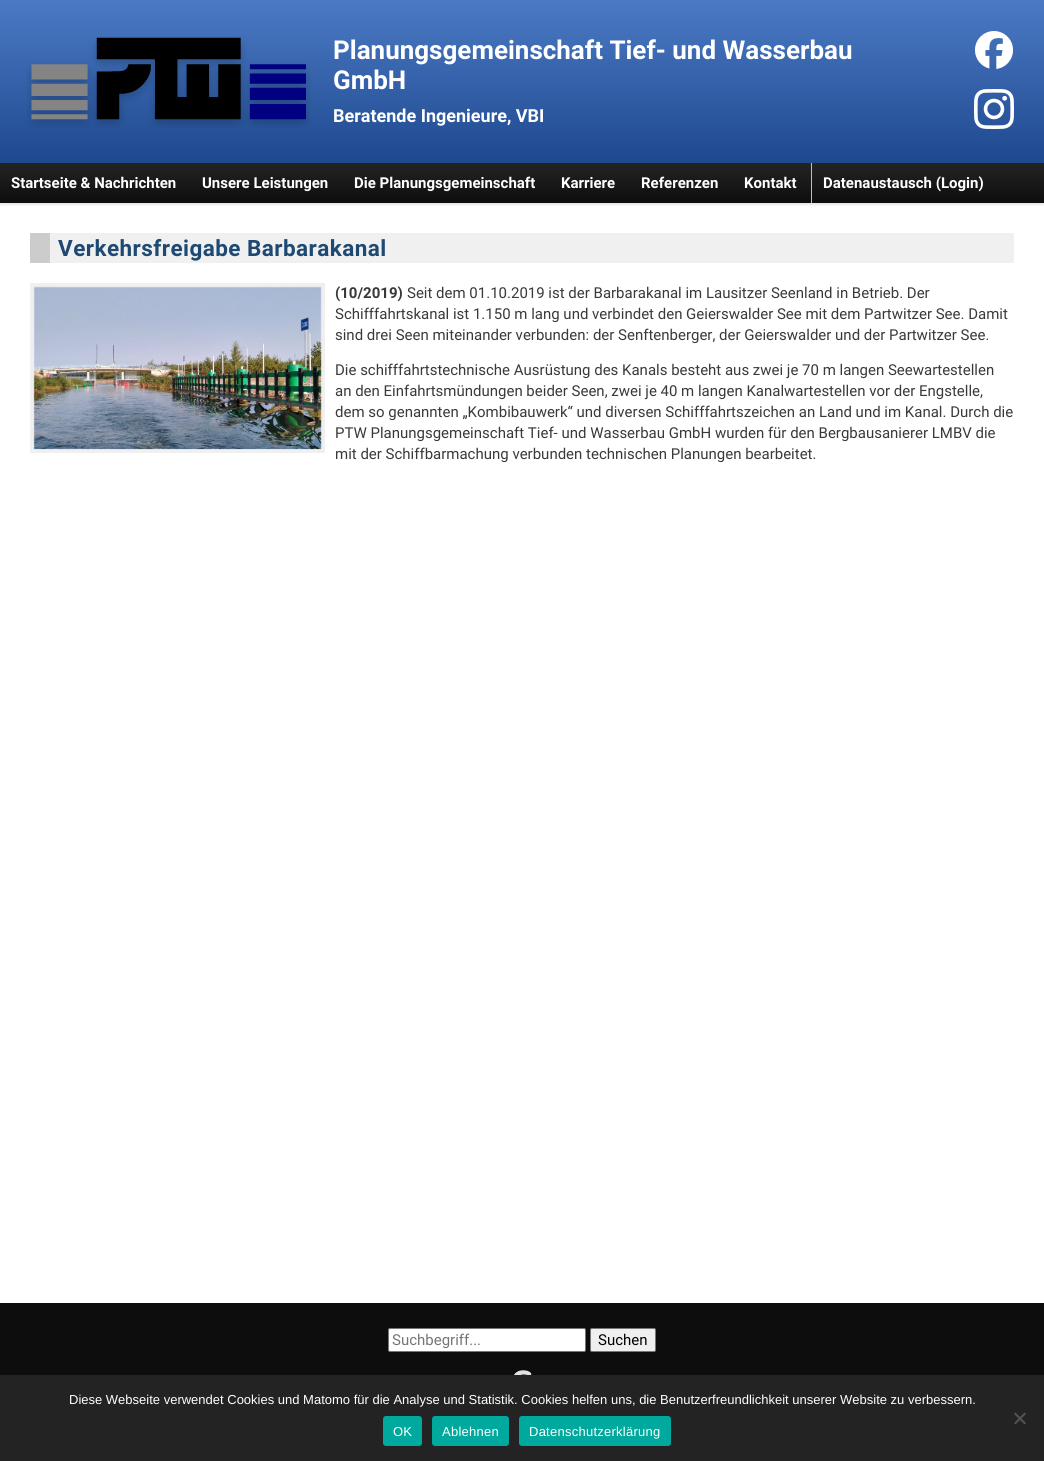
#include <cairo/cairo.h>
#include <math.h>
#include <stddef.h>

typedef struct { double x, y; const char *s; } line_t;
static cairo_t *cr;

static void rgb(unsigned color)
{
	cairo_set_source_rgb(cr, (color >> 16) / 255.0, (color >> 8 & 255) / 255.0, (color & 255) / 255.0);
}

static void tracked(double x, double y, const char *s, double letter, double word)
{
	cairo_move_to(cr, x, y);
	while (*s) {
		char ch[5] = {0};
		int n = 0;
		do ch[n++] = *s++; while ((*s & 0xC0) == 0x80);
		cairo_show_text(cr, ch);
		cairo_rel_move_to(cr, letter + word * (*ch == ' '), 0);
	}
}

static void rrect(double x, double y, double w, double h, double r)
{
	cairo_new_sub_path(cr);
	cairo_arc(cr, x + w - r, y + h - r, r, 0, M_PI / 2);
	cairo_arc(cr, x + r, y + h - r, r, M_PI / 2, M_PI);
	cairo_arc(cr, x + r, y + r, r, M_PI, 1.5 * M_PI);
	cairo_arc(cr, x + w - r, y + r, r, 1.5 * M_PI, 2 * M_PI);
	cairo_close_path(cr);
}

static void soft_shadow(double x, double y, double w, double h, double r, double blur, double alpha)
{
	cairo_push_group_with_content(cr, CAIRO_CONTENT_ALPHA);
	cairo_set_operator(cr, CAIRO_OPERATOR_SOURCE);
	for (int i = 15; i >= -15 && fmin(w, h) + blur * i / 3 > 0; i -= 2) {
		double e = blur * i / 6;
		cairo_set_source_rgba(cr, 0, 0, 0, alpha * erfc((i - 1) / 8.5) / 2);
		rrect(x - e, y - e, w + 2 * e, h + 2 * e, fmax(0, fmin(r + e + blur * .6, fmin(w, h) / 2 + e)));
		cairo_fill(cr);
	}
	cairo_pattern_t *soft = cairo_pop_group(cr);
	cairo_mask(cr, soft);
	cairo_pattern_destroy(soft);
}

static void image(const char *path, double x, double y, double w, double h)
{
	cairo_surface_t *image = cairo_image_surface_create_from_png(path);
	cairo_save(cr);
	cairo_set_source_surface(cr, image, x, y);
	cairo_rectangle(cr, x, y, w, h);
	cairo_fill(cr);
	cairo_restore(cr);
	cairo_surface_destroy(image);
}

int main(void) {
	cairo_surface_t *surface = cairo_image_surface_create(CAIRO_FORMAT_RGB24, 1044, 1461);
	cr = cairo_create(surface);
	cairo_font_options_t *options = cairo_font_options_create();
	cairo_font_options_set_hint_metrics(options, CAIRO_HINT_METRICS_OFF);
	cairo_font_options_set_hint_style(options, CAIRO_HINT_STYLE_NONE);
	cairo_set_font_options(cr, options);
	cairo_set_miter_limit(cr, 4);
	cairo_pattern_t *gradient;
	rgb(0xffffff);
	cairo_paint(cr);
	gradient = cairo_pattern_create_linear(522, 0, 522, 163);
	cairo_pattern_add_color_stop_rgba(gradient, 0, 0.294, 0.478, 0.769, 1);
	cairo_pattern_add_color_stop_rgba(gradient, 1, 0.118, 0.286, 0.561, 1);
	cairo_set_source(cr, gradient);
	cairo_pattern_destroy(gradient);
	cairo_rectangle(cr, 0, 0, 1044, 163);
	cairo_fill(cr);
	image("img/1.png", 26, 36, 285, 92);
	image("img/2.png", 975, 31, 39, 38);
	image("img/3.png", 974, 89, 40, 40);
	rgb(0x000000);
	soft_shadow(0, 165, 1044, 40, 0, 1, 0.1);
	gradient = cairo_pattern_create_linear(522, 163, 522, 203);
	cairo_pattern_add_color_stop_rgba(gradient, 0, 0.141, 0.141, 0.141, 1);
	cairo_pattern_add_color_stop_rgba(gradient, 1, 0.051, 0.051, 0.051, 1);
	cairo_set_source(cr, gradient);
	cairo_pattern_destroy(gradient);
	cairo_rectangle(cr, 0, 163, 1044, 40);
	cairo_fill(cr);
	gradient = cairo_pattern_create_linear(522, 163, 522, 203);
	cairo_pattern_add_color_stop_rgba(gradient, 0, 0.757, 0.757, 0.757, 1);
	cairo_pattern_add_color_stop_rgba(gradient, 1, 0.737, 0.737, 0.737, 1);
	cairo_set_source(cr, gradient);
	cairo_pattern_destroy(gradient);
	cairo_rectangle(cr, 811, 163, 1, 40);
	cairo_fill(cr);
	rgb(0xcccccc);
	cairo_rectangle(cr, 30, 233, 20, 30);
	cairo_fill(cr);
	rgb(0xf0f0f0);
	cairo_rectangle(cr, 50, 233, 964, 30);
	cairo_fill(cr);
	cairo_rectangle(cr, 32, 285, 291, 166);
	cairo_set_line_width(cr, 4);
	cairo_stroke(cr);
	image("img/4.png", 33, 286, 289, 164);
	rgb(0x0d0d0d);
	cairo_rectangle(cr, 0, 1303, 1044, 72);
	cairo_fill(cr);
	rgb(0xffffff);
	rrect(388.5, 1328.5, 197, 23, 1.5);
	cairo_fill_preserve(cr);
	rgb(0x767676);
	cairo_set_line_width(cr, 1);
	cairo_stroke(cr);
	rgb(0xefefef);
	rrect(590.5, 1328.5, 65, 23, 1.5);
	cairo_fill_preserve(cr);
	rgb(0x767676);
	cairo_stroke(cr);
	image("img/5.png", 514, 1370, 18, 5);
	rgb(0x232323);
	cairo_rectangle(cr, 0, 1375, 1044, 86);
	cairo_fill(cr);
	rgb(0x525252);
	cairo_new_path(cr);
	cairo_move_to(cr, 1024.5, 1412.5);
	cairo_line_to(cr, 1026, 1414);
	cairo_line_to(cr, 1015.5, 1424.5);
	cairo_line_to(cr, 1014, 1423);
	cairo_close_path(cr);
	cairo_fill(cr);
	cairo_new_path(cr);
	cairo_move_to(cr, 1014, 1414);
	cairo_line_to(cr, 1015.5, 1412.5);
	cairo_line_to(cr, 1026, 1423);
	cairo_line_to(cr, 1024.5, 1424.5);
	cairo_close_path(cr);
	cairo_fill(cr);
	rgb(0x00a99d);
	rrect(383, 1416, 39, 30, 3);
	cairo_fill(cr);
	rrect(432, 1416, 77, 30, 3);
	cairo_fill(cr);
	rrect(519, 1416, 152, 30, 3);
	cairo_fill(cr);
	cairo_select_font_face(cr, "Roboto", CAIRO_FONT_SLANT_NORMAL, CAIRO_FONT_WEIGHT_BOLD);
	cairo_set_font_size(cr, 26);
	rgb(0xffffff);
	cairo_move_to(cr, 333, 59);
	cairo_show_text(cr, "Planungsgemeinschaft Tief- und Wasserbau");
	cairo_move_to(cr, 333, 89);
	cairo_show_text(cr, "GmbH");
	cairo_set_font_size(cr, 18);
	cairo_move_to(cr, 333, 122);
	cairo_show_text(cr, "Beratende Ingenieure, VBI");
	cairo_set_font_size(cr, 15);
	{
		static const line_t items[] = {
			{11, 188, "Startseite & Nachrichten"},
			{202, 188, "Unsere Leistungen"},
			{354, 188, "Die Planungsgemeinschaft"},
			{561, 188, "Karriere"},
			{641, 188, "Referenzen"},
			{744, 188, "Kontakt"},
			{823, 188, "Datenaustausch (Login)"},
		};
		for (size_t i = 0; i < sizeof items / sizeof *items; i++) {
			cairo_move_to(cr, items[i].x, items[i].y);
			cairo_show_text(cr, items[i].s);
		}
	}
	cairo_set_font_size(cr, 22.5);
	rgb(0x1e4973);
	tracked(58, 256, "Verkehrsfreigabe Barbarakanal", 0.45, 0);
	cairo_set_font_size(cr, 15);
	rgb(0x393939);
	cairo_move_to(cr, 335, 298);
	cairo_show_text(cr, "(10/2019)");
	cairo_select_font_face(cr, "Roboto", CAIRO_FONT_SLANT_NORMAL, CAIRO_FONT_WEIGHT_NORMAL);
	{
		static const line_t items[] = {
			{407, 298, "Seit dem 01.10.2019 ist der Barbarakanal im Lausitzer Seenland in Betrieb. Der"},
			{335, 319, "Schifffahrtskanal ist 1.150 m lang und verbindet den Geierswalder See mit dem Partwitzer See. Damit"},
			{335, 340, "sind drei Seen miteinander verbunden: der Senftenberger, der Geierswalder und der Partwitzer See."},
			{335, 375, "Die schifffahrtstechnische Ausrüstung des Kanals besteht aus zwei je 70 m langen Seewartestellen"},
			{335, 396, "an den Einfahrtsmündungen beider Seen, zwei je 40 m langen Kanalwartestellen vor der Engstelle,"},
			{335, 417, "dem so genannten „Kombibauwerk“ und diversen Schifffahrtszeichen an Land und im Kanal. Durch die"},
			{335, 438, "PTW Planungsgemeinschaft Tief- und Wasserbau GmbH wurden für den Bergbausanierer LMBV die"},
			{335, 459, "mit der Schiffbarmachung verbunden technischen Planungen bearbeitet."},
		};
		for (size_t i = 0; i < sizeof items / sizeof *items; i++) {
			cairo_move_to(cr, items[i].x, items[i].y);
			cairo_show_text(cr, items[i].s);
		}
	}
	rgb(0x757575);
	cairo_move_to(cr, 392, 1345);
	cairo_show_text(cr, "Suchbegriff...");
	rgb(0x000000);
	cairo_move_to(cr, 598, 1345);
	cairo_show_text(cr, "Suchen");
	cairo_select_font_face(cr, "Liberation Sans", CAIRO_FONT_SLANT_NORMAL, CAIRO_FONT_WEIGHT_NORMAL);
	cairo_set_font_size(cr, 13);
	rgb(0xffffff);
	cairo_move_to(cr, 69, 1404);
	cairo_show_text(cr, "Diese Webseite verwendet Cookies und Matomo für die Analyse und Statistik. Cookies helfen uns, die Benutzerfreundlichkeit unserer Website zu verbessern.");
	{
		static const line_t items[] = {
			{393, 1436, "OK"},
			{442, 1436, "Ablehnen"},
			{529, 1436, "Datenschutzerklärung"},
		};
		for (size_t i = 0; i < sizeof items / sizeof *items; i++) {
			tracked(items[i].x, items[i].y, items[i].s, 0.25, 0);
		}
	}
	cairo_surface_write_to_png(surface, "page.png");
	cairo_font_options_destroy(options);
	cairo_destroy(cr);
	cairo_surface_destroy(surface);
	return 0;
}
